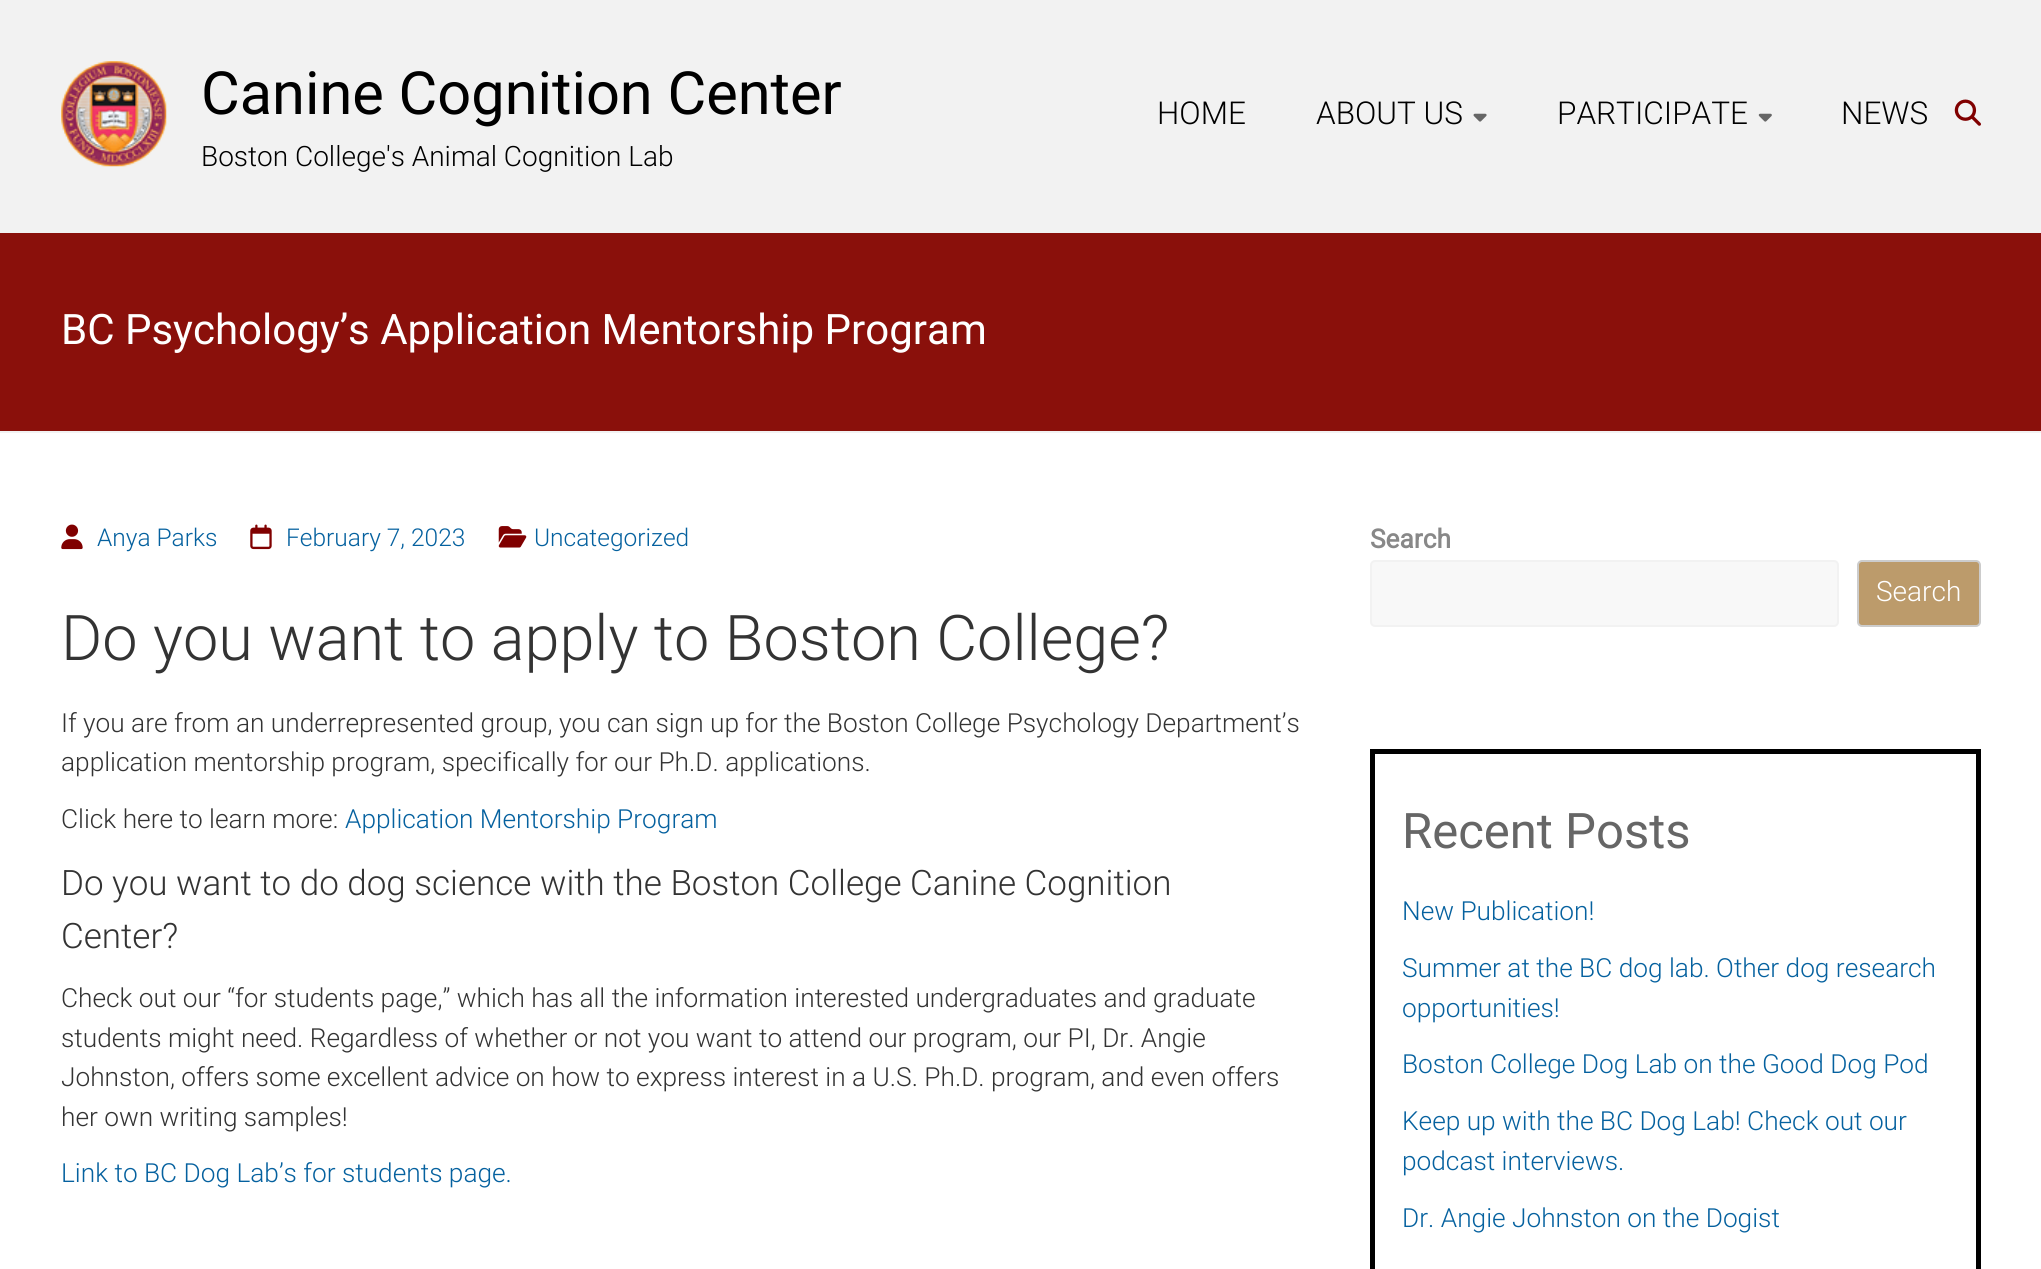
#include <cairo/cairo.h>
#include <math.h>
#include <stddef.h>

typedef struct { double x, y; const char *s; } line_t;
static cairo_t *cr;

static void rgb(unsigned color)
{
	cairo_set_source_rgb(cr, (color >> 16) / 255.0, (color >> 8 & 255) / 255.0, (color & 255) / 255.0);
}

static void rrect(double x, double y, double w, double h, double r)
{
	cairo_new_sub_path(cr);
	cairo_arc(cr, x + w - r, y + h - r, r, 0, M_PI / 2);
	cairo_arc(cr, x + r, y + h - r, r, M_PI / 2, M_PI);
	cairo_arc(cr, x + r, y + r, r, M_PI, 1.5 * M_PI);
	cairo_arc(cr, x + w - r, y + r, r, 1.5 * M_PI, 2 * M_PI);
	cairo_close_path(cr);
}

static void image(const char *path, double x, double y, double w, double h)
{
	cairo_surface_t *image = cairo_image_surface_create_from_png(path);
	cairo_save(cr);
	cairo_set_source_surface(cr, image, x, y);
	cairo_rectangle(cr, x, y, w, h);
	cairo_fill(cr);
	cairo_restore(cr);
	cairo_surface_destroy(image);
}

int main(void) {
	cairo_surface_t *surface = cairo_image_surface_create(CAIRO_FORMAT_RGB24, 2041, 1269);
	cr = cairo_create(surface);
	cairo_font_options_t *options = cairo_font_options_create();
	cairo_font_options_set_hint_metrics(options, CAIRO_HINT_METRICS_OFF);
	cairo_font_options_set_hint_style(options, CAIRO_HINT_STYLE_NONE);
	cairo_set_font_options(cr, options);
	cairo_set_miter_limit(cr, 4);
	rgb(0xffffff);
	cairo_paint(cr);
	rgb(0xf2f2f2);
	cairo_rectangle(cr, 0, 0, 2041, 233);
	cairo_fill(cr);
	image("img/1.png", 61, 61, 106, 106);
	image("img/2.png", 1473, 113, 14, 9);
	image("img/3.png", 1758, 113, 14, 9);
	image("img/4.png", 1954, 99, 27, 27);
	rgb(0x8a100b);
	cairo_rectangle(cr, 0, 233, 2041, 198);
	cairo_fill(cr);
	rgb(0xf2f2f2);
	cairo_rectangle(cr, 0, 431, 2041, 2);
	cairo_fill(cr);
	image("img/5.png", 61, 524, 22, 26);
	image("img/6.png", 250, 524, 22, 26);
	image("img/7.png", 498, 526, 29, 22);
	rgb(0xf8f8f8);
	rrect(1371, 561, 467, 65, 4);
	cairo_fill_preserve(cr);
	rgb(0xf2f2f2);
	cairo_stroke(cr);
	rgb(0xbc9b6b);
	rrect(1858, 561, 122, 65, 4);
	cairo_fill_preserve(cr);
	rgb(0xcccccc);
	cairo_stroke(cr);
	cairo_rectangle(cr, 1372.5, 751.5, 606, 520);
	rgb(0x000000);
	cairo_set_line_width(cr, 5);
	cairo_stroke(cr);
	cairo_select_font_face(cr, "Roboto", CAIRO_FONT_SLANT_NORMAL, CAIRO_FONT_WEIGHT_NORMAL);
	cairo_set_font_size(cr, 59.5);
	cairo_move_to(cr, 201, 114);
	cairo_show_text(cr, "Canine Cognition Center");
	cairo_select_font_face(cr, "Roboto Light", CAIRO_FONT_SLANT_NORMAL, CAIRO_FONT_WEIGHT_NORMAL);
	cairo_set_font_size(cr, 28);
	cairo_move_to(cr, 201, 166);
	cairo_show_text(cr, "Boston College's Animal Cognition Lab");
	cairo_set_font_size(cr, 31.5);
	{
		static const line_t items[] = {
			{1157, 124, "HOME"},
			{1316, 124, "ABOUT US"},
			{1557, 124, "PARTICIPATE"},
			{1841, 124, "NEWS"},
		};
		for (size_t i = 0; i < sizeof items / sizeof *items; i++) {
			cairo_move_to(cr, items[i].x, items[i].y);
			cairo_show_text(cr, items[i].s);
		}
	}
	cairo_select_font_face(cr, "Roboto", CAIRO_FONT_SLANT_NORMAL, CAIRO_FONT_WEIGHT_NORMAL);
	cairo_set_font_size(cr, 42);
	rgb(0xffffff);
	cairo_move_to(cr, 61, 344);
	cairo_show_text(cr, "BC Psychology’s Application Mentorship Program");
	cairo_select_font_face(cr, "Roboto Light", CAIRO_FONT_SLANT_NORMAL, CAIRO_FONT_WEIGHT_NORMAL);
	cairo_set_font_size(cr, 24.5);
	rgb(0x05619f);
	{
		static const line_t items[] = {
			{97, 546, "Anya Parks"},
			{286, 546, "February 7, 2023"},
			{534, 546, "Uncategorized"},
		};
		for (size_t i = 0; i < sizeof items / sizeof *items; i++) {
			cairo_move_to(cr, items[i].x, items[i].y);
			cairo_show_text(cr, items[i].s);
		}
	}
	cairo_set_font_size(cr, 63);
	rgb(0x333333);
	cairo_move_to(cr, 61, 660);
	cairo_show_text(cr, "Do you want to apply to Boston College?");
	cairo_set_font_size(cr, 26.25);
	{
		static const line_t items[] = {
			{61, 732, "If you are from an underrepresented group, you can sign up for the Boston College Psychology Department’s"},
			{61, 771, "application mentorship program, specifically for our Ph.D. applications."},
			{61, 828, "Click here to learn more:"},
		};
		for (size_t i = 0; i < sizeof items / sizeof *items; i++) {
			cairo_move_to(cr, items[i].x, items[i].y);
			cairo_show_text(cr, items[i].s);
		}
	}
	rgb(0x05619f);
	cairo_move_to(cr, 345, 828);
	cairo_show_text(cr, "Application Mentorship Program");
	cairo_set_font_size(cr, 35);
	rgb(0x333333);
	cairo_move_to(cr, 61, 895);
	cairo_show_text(cr, "Do you want to do dog science with the Boston College Canine Cognition");
	cairo_move_to(cr, 61, 948);
	cairo_show_text(cr, "Center?");
	cairo_set_font_size(cr, 26.25);
	{
		static const line_t items[] = {
			{61, 1007, "Check out our “for students page,” which has all the information interested undergraduates and graduate"},
			{61, 1047, "students might need. Regardless of whether or not you want to attend our program, our PI, Dr. Angie"},
			{61, 1086, "Johnston, offers some excellent advice on how to express interest in a U.S. Ph.D. program, and even offers"},
			{61, 1126, "her own writing samples!"},
		};
		for (size_t i = 0; i < sizeof items / sizeof *items; i++) {
			cairo_move_to(cr, items[i].x, items[i].y);
			cairo_show_text(cr, items[i].s);
		}
	}
	rgb(0x05619f);
	cairo_move_to(cr, 61, 1182);
	cairo_show_text(cr, "Link to BC Dog Lab’s for students page.");
	cairo_select_font_face(cr, "Roboto", CAIRO_FONT_SLANT_NORMAL, CAIRO_FONT_WEIGHT_BOLD);
	rgb(0x888888);
	cairo_move_to(cr, 1370, 548);
	cairo_show_text(cr, "Search");
	cairo_select_font_face(cr, "Roboto Light", CAIRO_FONT_SLANT_NORMAL, CAIRO_FONT_WEIGHT_NORMAL);
	cairo_set_font_size(cr, 28);
	rgb(0xffffff);
	cairo_move_to(cr, 1876, 601);
	cairo_show_text(cr, "Search");
	cairo_select_font_face(cr, "Roboto", CAIRO_FONT_SLANT_NORMAL, CAIRO_FONT_WEIGHT_NORMAL);
	cairo_set_font_size(cr, 49);
	rgb(0x666666);
	cairo_move_to(cr, 1402, 848);
	cairo_show_text(cr, "Recent Posts");
	cairo_select_font_face(cr, "Roboto Light", CAIRO_FONT_SLANT_NORMAL, CAIRO_FONT_WEIGHT_NORMAL);
	cairo_set_font_size(cr, 26.25);
	rgb(0x05619f);
	{
		static const line_t items[] = {
			{1402, 920, "New Publication!"},
			{1402, 977, "Summer at the BC dog lab. Other dog research"},
			{1402, 1017, "opportunities!"},
			{1402, 1073, "Boston College Dog Lab on the Good Dog Pod"},
			{1402, 1130, "Keep up with the BC Dog Lab! Check out our"},
			{1402, 1170, "podcast interviews."},
			{1402, 1227, "Dr. Angie Johnston on the Dogist"},
		};
		for (size_t i = 0; i < sizeof items / sizeof *items; i++) {
			cairo_move_to(cr, items[i].x, items[i].y);
			cairo_show_text(cr, items[i].s);
		}
	}
	cairo_surface_write_to_png(surface, "page.png");
	cairo_font_options_destroy(options);
	cairo_destroy(cr);
	cairo_surface_destroy(surface);
	return 0;
}
